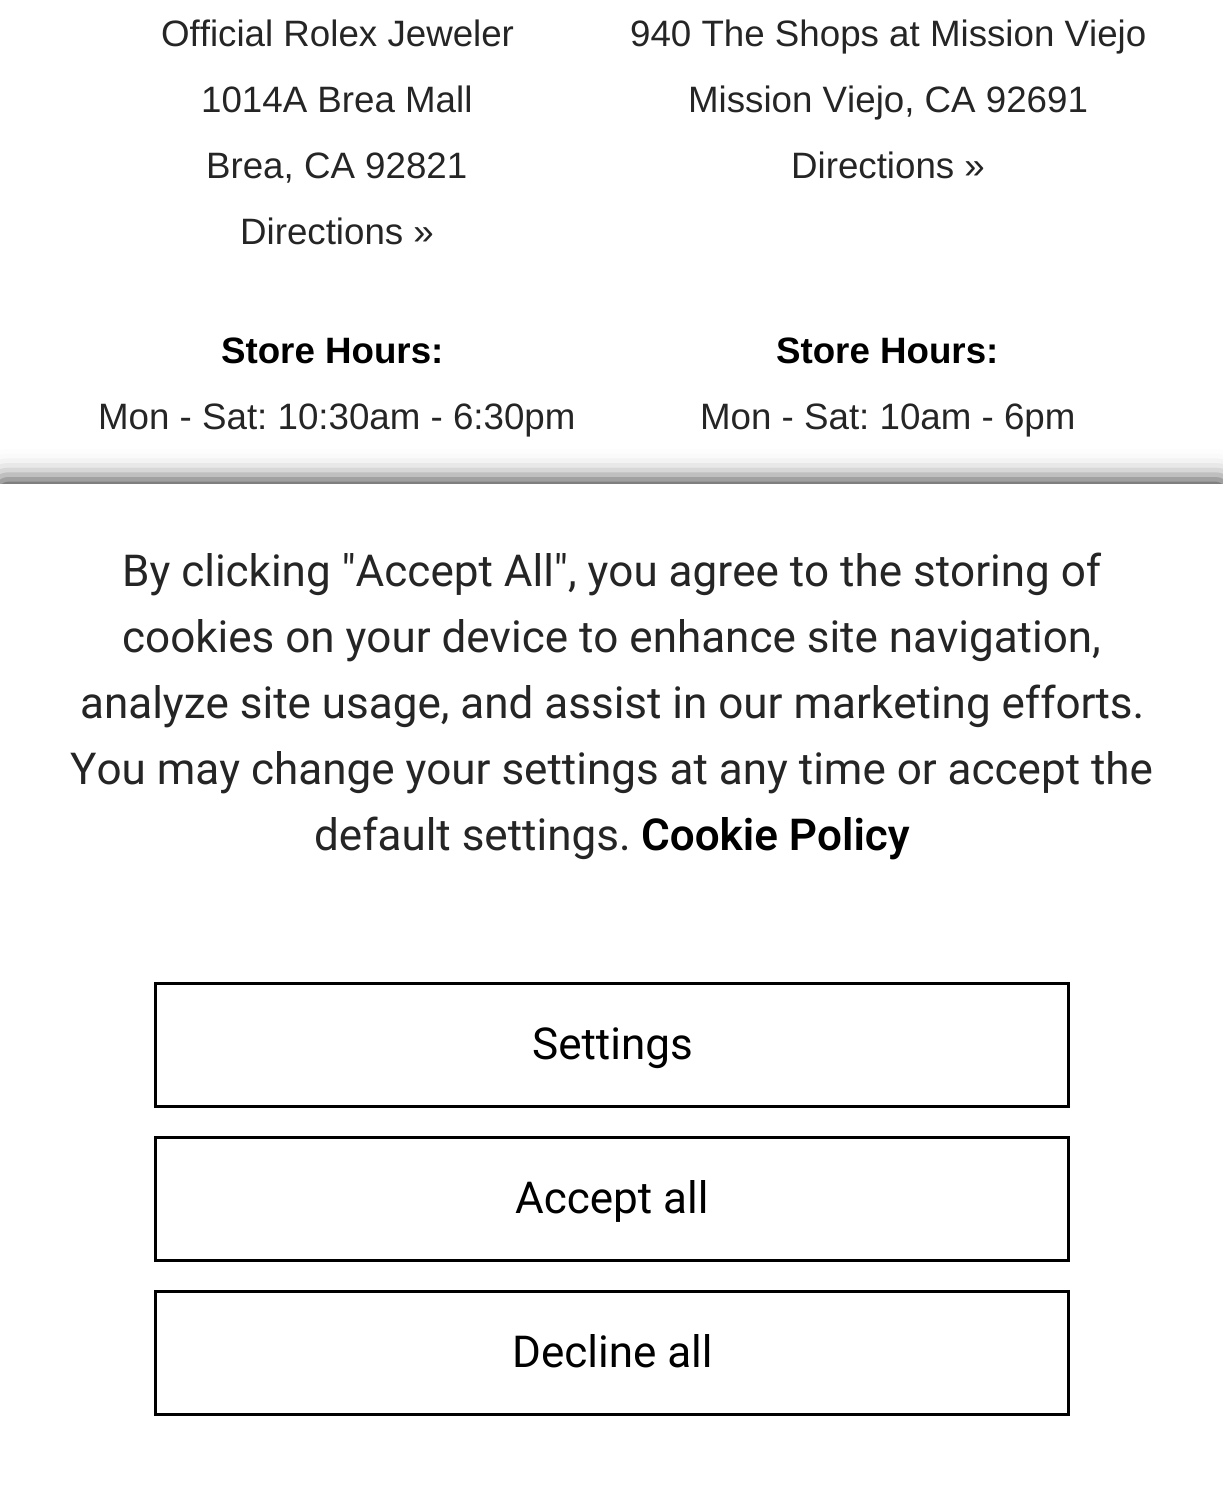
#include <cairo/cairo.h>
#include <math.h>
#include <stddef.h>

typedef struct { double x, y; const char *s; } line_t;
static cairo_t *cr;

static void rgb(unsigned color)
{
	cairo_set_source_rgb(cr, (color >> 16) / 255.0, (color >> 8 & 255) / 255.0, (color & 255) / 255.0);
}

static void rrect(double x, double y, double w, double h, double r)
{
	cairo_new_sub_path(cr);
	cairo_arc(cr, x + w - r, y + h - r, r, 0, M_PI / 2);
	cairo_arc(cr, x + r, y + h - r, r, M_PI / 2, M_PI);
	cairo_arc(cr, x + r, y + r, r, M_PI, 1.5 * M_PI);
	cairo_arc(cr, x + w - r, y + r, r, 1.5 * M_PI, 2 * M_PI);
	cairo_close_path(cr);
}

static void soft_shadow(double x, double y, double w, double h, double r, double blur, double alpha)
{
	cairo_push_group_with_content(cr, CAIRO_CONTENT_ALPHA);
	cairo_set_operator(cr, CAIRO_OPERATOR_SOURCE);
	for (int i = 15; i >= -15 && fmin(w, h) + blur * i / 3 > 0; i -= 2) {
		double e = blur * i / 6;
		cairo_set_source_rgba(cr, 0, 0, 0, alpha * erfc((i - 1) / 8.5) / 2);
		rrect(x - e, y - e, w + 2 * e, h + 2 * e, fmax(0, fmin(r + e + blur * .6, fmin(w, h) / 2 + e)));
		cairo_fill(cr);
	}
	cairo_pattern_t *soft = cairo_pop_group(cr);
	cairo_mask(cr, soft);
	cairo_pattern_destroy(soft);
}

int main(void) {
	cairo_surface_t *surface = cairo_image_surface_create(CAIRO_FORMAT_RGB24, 1223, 1485);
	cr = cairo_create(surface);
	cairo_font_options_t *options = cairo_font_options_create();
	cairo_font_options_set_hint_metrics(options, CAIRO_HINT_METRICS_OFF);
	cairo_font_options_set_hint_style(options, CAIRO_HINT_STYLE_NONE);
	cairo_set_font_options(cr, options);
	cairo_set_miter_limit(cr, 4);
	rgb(0xffffff);
	cairo_paint(cr);
	rgb(0x000000);
	soft_shadow(0, 484, 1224, 1001, 0, 14, 1);
	rgb(0xffffff);
	cairo_rectangle(cr, 0, 484, 1223, 1001);
	cairo_fill(cr);
	cairo_rectangle(cr, 155.5, 983.5, 913, 123);
	rgb(0x000000);
	cairo_set_line_width(cr, 3);
	cairo_stroke(cr);
	cairo_rectangle(cr, 155.5, 1137.5, 913, 123);
	cairo_stroke(cr);
	cairo_rectangle(cr, 155.5, 1291.5, 913, 123);
	cairo_stroke(cr);
	cairo_select_font_face(cr, "Liberation Sans", CAIRO_FONT_SLANT_NORMAL, CAIRO_FONT_WEIGHT_NORMAL);
	cairo_set_font_size(cr, 36.7);
	rgb(0x252525);
	{
		static const line_t items[] = {
			{161, 46, "Official Rolex Jeweler"},
			{201, 112, "1014A Brea Mall"},
			{206, 178, "Brea, CA 92821"},
			{240, 244, "Directions »"},
			{630, 46, "940 The Shops at Mission Viejo"},
			{688, 112, "Mission Viejo, CA 92691"},
			{791, 178, "Directions »"},
		};
		for (size_t i = 0; i < sizeof items / sizeof *items; i++) {
			cairo_move_to(cr, items[i].x, items[i].y);
			cairo_show_text(cr, items[i].s);
		}
	}
	cairo_select_font_face(cr, "Liberation Sans", CAIRO_FONT_SLANT_NORMAL, CAIRO_FONT_WEIGHT_BOLD);
	rgb(0x000000);
	cairo_move_to(cr, 221, 363);
	cairo_show_text(cr, "Store Hours:");
	cairo_select_font_face(cr, "Liberation Sans", CAIRO_FONT_SLANT_NORMAL, CAIRO_FONT_WEIGHT_NORMAL);
	rgb(0x252525);
	cairo_move_to(cr, 98, 429);
	cairo_show_text(cr, "Mon - Sat: 10:30am - 6:30pm");
	cairo_select_font_face(cr, "Liberation Sans", CAIRO_FONT_SLANT_NORMAL, CAIRO_FONT_WEIGHT_BOLD);
	rgb(0x000000);
	cairo_move_to(cr, 776, 363);
	cairo_show_text(cr, "Store Hours:");
	cairo_select_font_face(cr, "Liberation Sans", CAIRO_FONT_SLANT_NORMAL, CAIRO_FONT_WEIGHT_NORMAL);
	rgb(0x252525);
	cairo_move_to(cr, 700, 429);
	cairo_show_text(cr, "Mon - Sat: 10am - 6pm");
	cairo_select_font_face(cr, "Roboto", CAIRO_FONT_SLANT_NORMAL, CAIRO_FONT_WEIGHT_NORMAL);
	cairo_set_font_size(cr, 44);
	{
		static const line_t items[] = {
			{122, 586, "By clicking \"Accept All\", you agree to the storing of"},
			{122, 652, "cookies on your device to enhance site navigation,"},
			{80, 718, "analyze site usage, and assist in our marketing efforts."},
			{70, 784, "You may change your settings at any time or accept the"},
			{314, 850, "default settings."},
		};
		for (size_t i = 0; i < sizeof items / sizeof *items; i++) {
			cairo_move_to(cr, items[i].x, items[i].y);
			cairo_show_text(cr, items[i].s);
		}
	}
	cairo_select_font_face(cr, "Roboto SemiBold", CAIRO_FONT_SLANT_NORMAL, CAIRO_FONT_WEIGHT_NORMAL);
	rgb(0x000000);
	cairo_move_to(cr, 641, 850);
	cairo_show_text(cr, "Cookie Policy");
	cairo_select_font_face(cr, "Roboto", CAIRO_FONT_SLANT_NORMAL, CAIRO_FONT_WEIGHT_NORMAL);
	{
		static const line_t items[] = {
			{532, 1059, "Settings"},
			{515, 1213, "Accept all"},
			{512, 1367, "Decline all"},
		};
		for (size_t i = 0; i < sizeof items / sizeof *items; i++) {
			cairo_move_to(cr, items[i].x, items[i].y);
			cairo_show_text(cr, items[i].s);
		}
	}
	cairo_surface_write_to_png(surface, "page.png");
	cairo_font_options_destroy(options);
	cairo_destroy(cr);
	cairo_surface_destroy(surface);
	return 0;
}
